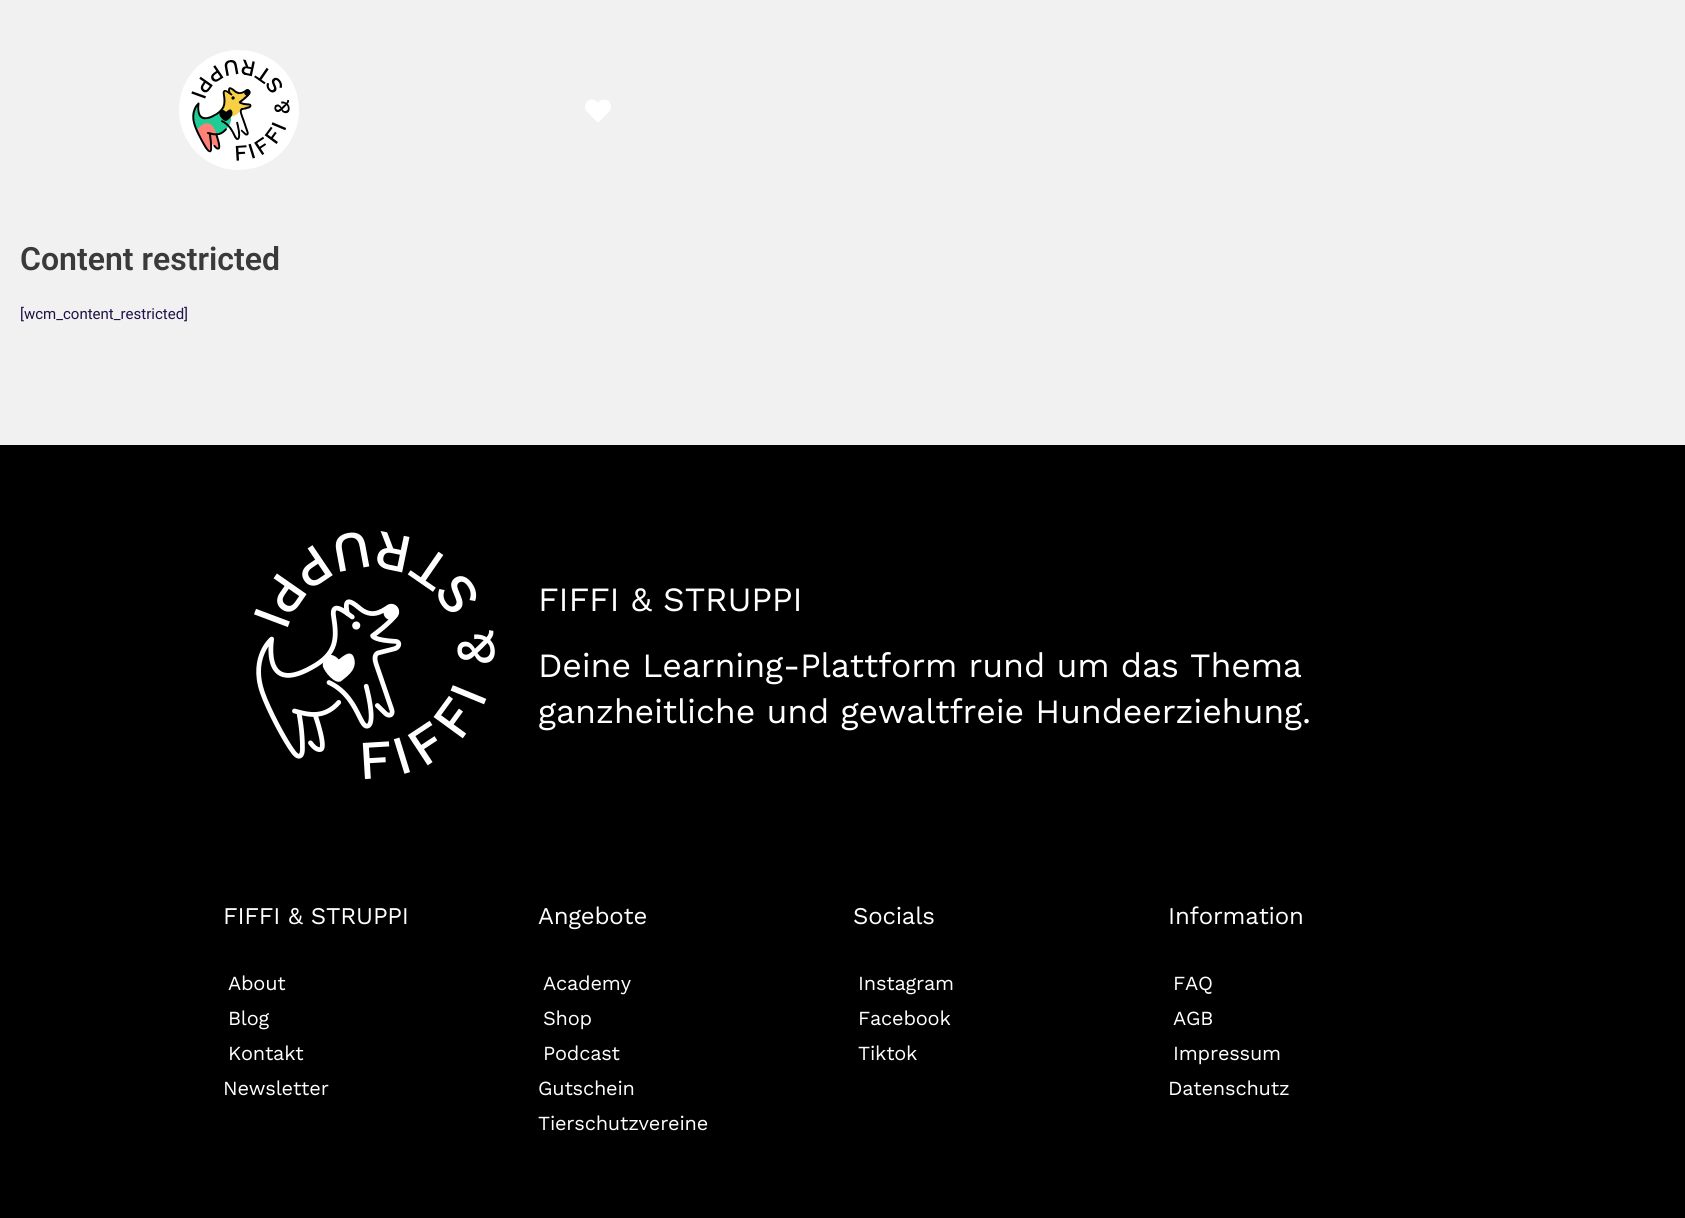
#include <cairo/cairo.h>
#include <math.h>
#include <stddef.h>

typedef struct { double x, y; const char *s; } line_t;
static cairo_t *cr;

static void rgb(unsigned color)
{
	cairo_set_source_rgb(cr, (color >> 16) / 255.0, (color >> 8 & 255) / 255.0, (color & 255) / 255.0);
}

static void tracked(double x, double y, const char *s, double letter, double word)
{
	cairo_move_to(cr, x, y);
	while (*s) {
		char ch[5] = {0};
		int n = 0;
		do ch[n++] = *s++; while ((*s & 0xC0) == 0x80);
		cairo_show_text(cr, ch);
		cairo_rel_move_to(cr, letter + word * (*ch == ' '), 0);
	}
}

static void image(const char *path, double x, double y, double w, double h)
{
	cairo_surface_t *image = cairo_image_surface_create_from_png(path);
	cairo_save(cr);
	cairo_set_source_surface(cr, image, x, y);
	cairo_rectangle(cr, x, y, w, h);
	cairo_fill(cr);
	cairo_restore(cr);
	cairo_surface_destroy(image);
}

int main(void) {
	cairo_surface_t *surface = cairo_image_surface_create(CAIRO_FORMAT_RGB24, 1685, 1218);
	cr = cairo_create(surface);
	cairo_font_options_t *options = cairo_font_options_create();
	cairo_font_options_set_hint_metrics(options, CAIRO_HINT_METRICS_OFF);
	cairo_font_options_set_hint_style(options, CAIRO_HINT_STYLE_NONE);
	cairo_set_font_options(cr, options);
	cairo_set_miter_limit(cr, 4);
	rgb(0xf1f1f1);
	cairo_paint(cr);
	image("img/1.png", 179, 50, 120, 120);
	image("img/2.png", 585, 99, 26, 23);
	rgb(0x000000);
	cairo_rectangle(cr, 0, 445, 1685, 773);
	cairo_fill(cr);
	image("img/3.png", 254, 531, 241, 249);
	cairo_select_font_face(cr, "Roboto SemiBold", CAIRO_FONT_SLANT_NORMAL, CAIRO_FONT_WEIGHT_NORMAL);
	cairo_set_font_size(cr, 32);
	rgb(0x3a3a3a);
	cairo_move_to(cr, 20, 270);
	cairo_show_text(cr, "Content restricted");
	cairo_select_font_face(cr, "Roboto", CAIRO_FONT_SLANT_NORMAL, CAIRO_FONT_WEIGHT_NORMAL);
	cairo_set_font_size(cr, 15);
	rgb(0x211149);
	cairo_move_to(cr, 20, 319);
	cairo_show_text(cr, "[wcm_content_restricted]");
	cairo_select_font_face(cr, "Work Sans", CAIRO_FONT_SLANT_NORMAL, CAIRO_FONT_WEIGHT_NORMAL);
	cairo_set_font_size(cr, 34);
	rgb(0xffffff);
	{
		static const line_t items[] = {
			{538, 611, "FIFFI & STRUPPI"},
			{538, 677, "Deine Learning-Plattform rund um das Thema"},
			{538, 723, "ganzheitliche und gewaltfreie Hundeerziehung."},
		};
		for (size_t i = 0; i < sizeof items / sizeof *items; i++) {
			tracked(items[i].x, items[i].y, items[i].s, -0.2, 0);
		}
	}
	cairo_set_font_size(cr, 24);
	tracked(223, 924, "FIFFI & STRUPPI", -0.2, 0);
	cairo_set_font_size(cr, 20);
	{
		static const line_t items[] = {
			{228, 990, "About"},
			{228, 1025, "Blog"},
			{228, 1060, "Kontakt"},
			{223, 1095, "Newsletter"},
		};
		for (size_t i = 0; i < sizeof items / sizeof *items; i++) {
			tracked(items[i].x, items[i].y, items[i].s, -0.2, 0);
		}
	}
	cairo_set_font_size(cr, 24);
	tracked(538, 924, "Angebote", -0.2, 0);
	cairo_set_font_size(cr, 20);
	{
		static const line_t items[] = {
			{543, 990, "Academy"},
			{543, 1025, "Shop"},
			{543, 1060, "Podcast"},
			{538, 1095, "Gutschein"},
			{538, 1130, "Tierschutzvereine"},
		};
		for (size_t i = 0; i < sizeof items / sizeof *items; i++) {
			tracked(items[i].x, items[i].y, items[i].s, -0.2, 0);
		}
	}
	cairo_set_font_size(cr, 24);
	tracked(853, 924, "Socials", -0.2, 0);
	cairo_set_font_size(cr, 20);
	{
		static const line_t items[] = {
			{858, 990, "Instagram"},
			{858, 1025, "Facebook"},
			{858, 1060, "Tiktok"},
		};
		for (size_t i = 0; i < sizeof items / sizeof *items; i++) {
			tracked(items[i].x, items[i].y, items[i].s, -0.2, 0);
		}
	}
	cairo_set_font_size(cr, 24);
	tracked(1168, 924, "Information", -0.2, 0);
	cairo_set_font_size(cr, 20);
	{
		static const line_t items[] = {
			{1173, 990, "FAQ"},
			{1173, 1025, "AGB"},
			{1173, 1060, "Impressum"},
			{1168, 1095, "Datenschutz"},
		};
		for (size_t i = 0; i < sizeof items / sizeof *items; i++) {
			tracked(items[i].x, items[i].y, items[i].s, -0.2, 0);
		}
	}
	cairo_surface_write_to_png(surface, "page.png");
	cairo_font_options_destroy(options);
	cairo_destroy(cr);
	cairo_surface_destroy(surface);
	return 0;
}
